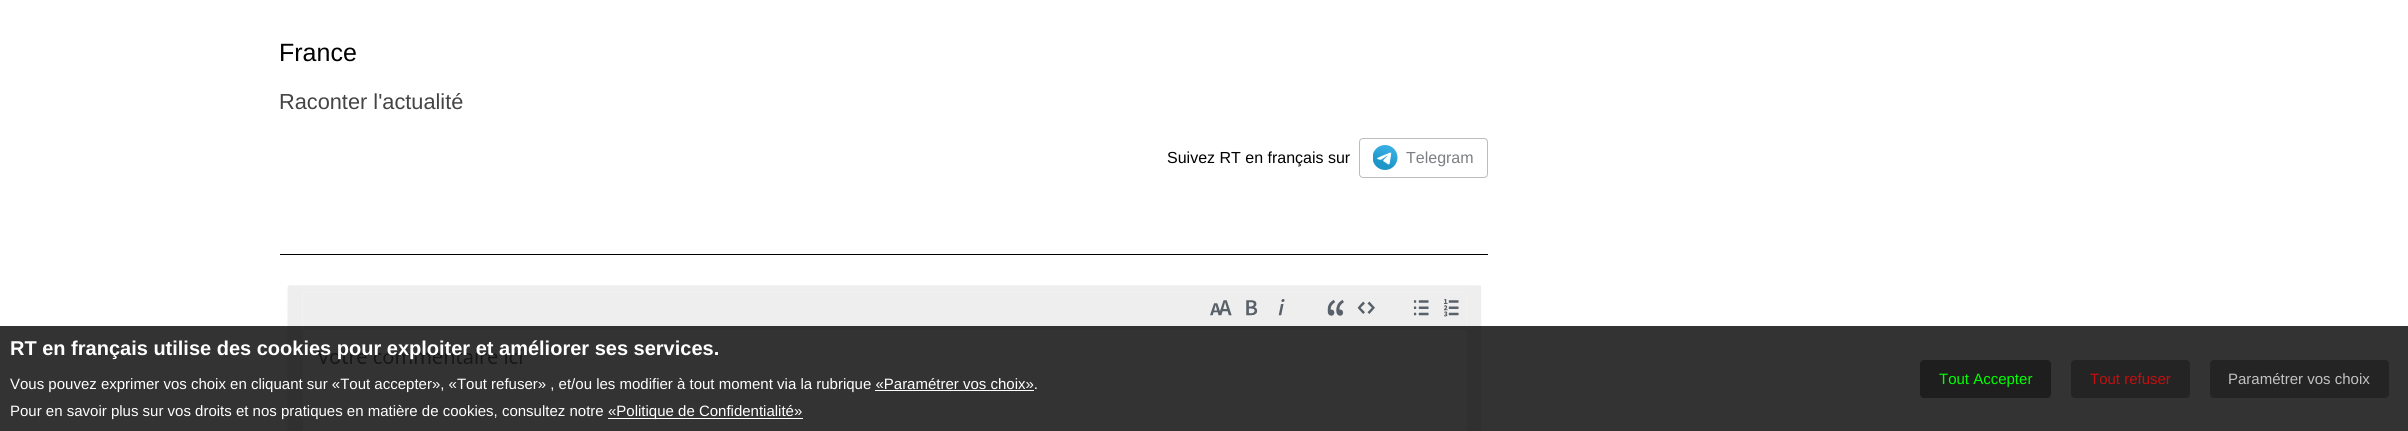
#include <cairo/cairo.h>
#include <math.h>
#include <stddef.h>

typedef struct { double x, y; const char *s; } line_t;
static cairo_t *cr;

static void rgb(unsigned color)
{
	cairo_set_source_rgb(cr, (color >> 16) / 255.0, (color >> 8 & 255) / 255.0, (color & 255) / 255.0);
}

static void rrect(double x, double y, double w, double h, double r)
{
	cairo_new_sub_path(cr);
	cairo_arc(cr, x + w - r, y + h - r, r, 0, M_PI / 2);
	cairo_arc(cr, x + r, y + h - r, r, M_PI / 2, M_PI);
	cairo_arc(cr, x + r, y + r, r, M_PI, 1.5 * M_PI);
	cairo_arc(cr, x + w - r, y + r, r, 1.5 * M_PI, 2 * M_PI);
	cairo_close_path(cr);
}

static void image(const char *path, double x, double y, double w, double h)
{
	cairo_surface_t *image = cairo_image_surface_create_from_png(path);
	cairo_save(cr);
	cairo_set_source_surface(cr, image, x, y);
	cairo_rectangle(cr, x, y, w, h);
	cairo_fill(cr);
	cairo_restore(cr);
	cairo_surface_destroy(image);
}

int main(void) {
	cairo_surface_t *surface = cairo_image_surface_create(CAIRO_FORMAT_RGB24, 2408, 431);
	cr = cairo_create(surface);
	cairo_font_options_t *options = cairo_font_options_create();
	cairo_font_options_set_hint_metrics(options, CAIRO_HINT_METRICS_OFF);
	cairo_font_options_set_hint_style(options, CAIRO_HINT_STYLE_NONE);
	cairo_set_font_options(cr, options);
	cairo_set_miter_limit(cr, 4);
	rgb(0xffffff);
	cairo_paint(cr);
	rrect(1359.5, 138.5, 128, 39, 3.5);
	rgb(0xbcbcbc);
	cairo_set_line_width(cr, 1);
	cairo_stroke(cr);
	image("img/1.png", 1373, 145, 25, 25);
	rgb(0x000000);
	cairo_rectangle(cr, 280, 254, 1208, 1);
	cairo_fill(cr);
	image("img/2.png", 287, 285, 1195, 146);
	cairo_set_source_rgba(cr, 0, 0, 0, 0.8);
	cairo_rectangle(cr, 0, 326, 2408, 105);
	cairo_fill(cr);
	rgb(0xffffff);
	cairo_rectangle(cr, 875, 390, 159, 1);
	cairo_fill(cr);
	cairo_rectangle(cr, 608, 418, 195, 1);
	cairo_fill(cr);
	rgb(0x1e1e1e);
	rrect(1920, 360, 131, 38, 4);
	cairo_fill(cr);
	rgb(0x242424);
	rrect(2071, 360, 119, 38, 4);
	cairo_fill(cr);
	rrect(2210, 360, 179, 38, 4);
	cairo_fill(cr);
	cairo_select_font_face(cr, "Liberation Sans", CAIRO_FONT_SLANT_NORMAL, CAIRO_FONT_WEIGHT_NORMAL);
	cairo_set_font_size(cr, 25);
	rgb(0x000000);
	cairo_move_to(cr, 279, 61);
	cairo_show_text(cr, "France");
	cairo_set_font_size(cr, 21.75);
	rgb(0x444444);
	cairo_move_to(cr, 279, 109);
	cairo_show_text(cr, "Raconter l'actualité");
	cairo_set_font_size(cr, 16);
	rgb(0x000000);
	cairo_move_to(cr, 1167, 163);
	cairo_show_text(cr, "Suivez RT en français sur");
	rgb(0x7b7f83);
	cairo_move_to(cr, 1406, 163);
	cairo_show_text(cr, "Telegram");
	cairo_select_font_face(cr, "Liberation Sans", CAIRO_FONT_SLANT_NORMAL, CAIRO_FONT_WEIGHT_BOLD);
	cairo_set_font_size(cr, 20);
	rgb(0xffffff);
	cairo_move_to(cr, 10, 355);
	cairo_show_text(cr, "RT en français utilise des cookies pour exploiter et améliorer ses services.");
	cairo_select_font_face(cr, "Liberation Sans", CAIRO_FONT_SLANT_NORMAL, CAIRO_FONT_WEIGHT_NORMAL);
	cairo_set_font_size(cr, 15);
	{
		static const line_t items[] = {
			{10, 389, "Vous pouvez exprimer vos choix en cliquant sur «Tout accepter», «Tout refuser» , et/ou les modifier à tout moment via la rubrique «Paramétrer vos choix»."},
			{10, 416, "Pour en savoir plus sur vos droits et nos pratiques en matière de cookies, consultez notre"},
			{608, 416, "«Politique de Confidentialité»"},
		};
		for (size_t i = 0; i < sizeof items / sizeof *items; i++) {
			cairo_move_to(cr, items[i].x, items[i].y);
			cairo_show_text(cr, items[i].s);
		}
	}
	rgb(0x00ff00);
	cairo_move_to(cr, 1939, 384);
	cairo_show_text(cr, "Tout Accepter");
	rgb(0xc20f0f);
	cairo_move_to(cr, 2090, 384);
	cairo_show_text(cr, "Tout refuser");
	rgb(0xc2c2c2);
	cairo_move_to(cr, 2228, 384);
	cairo_show_text(cr, "Paramétrer vos choix");
	cairo_surface_write_to_png(surface, "page.png");
	cairo_font_options_destroy(options);
	cairo_destroy(cr);
	cairo_surface_destroy(surface);
	return 0;
}
